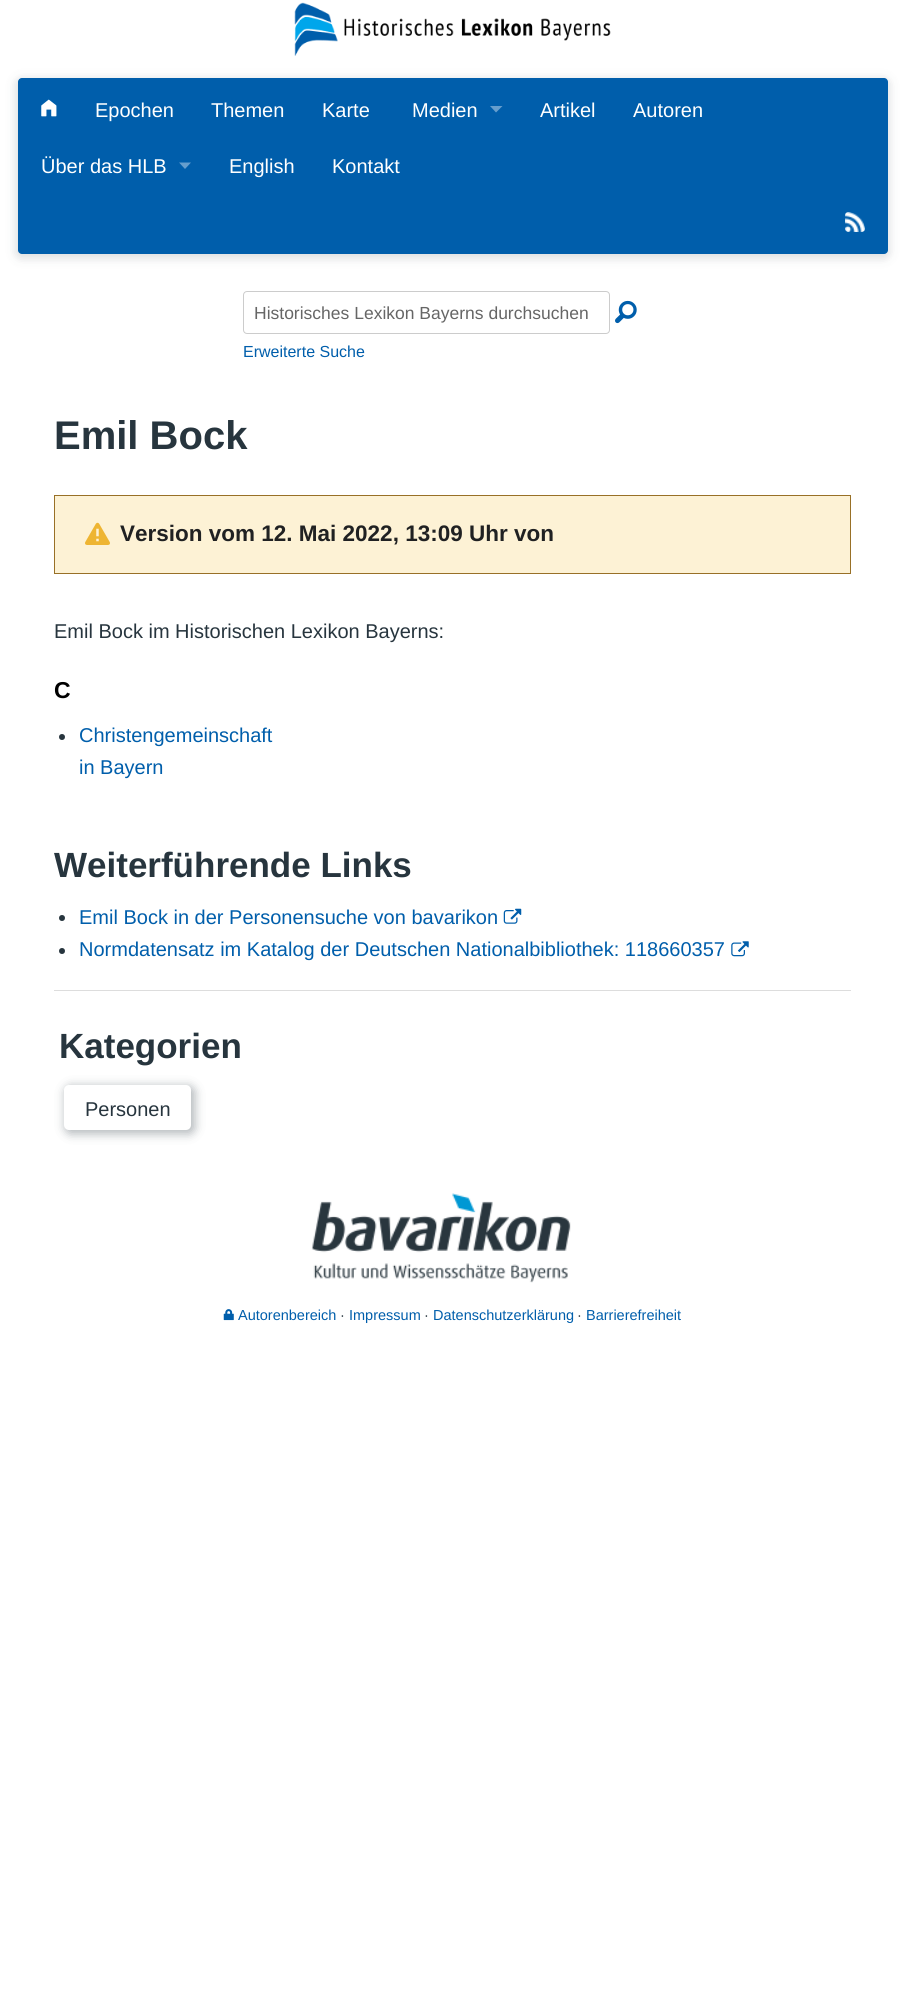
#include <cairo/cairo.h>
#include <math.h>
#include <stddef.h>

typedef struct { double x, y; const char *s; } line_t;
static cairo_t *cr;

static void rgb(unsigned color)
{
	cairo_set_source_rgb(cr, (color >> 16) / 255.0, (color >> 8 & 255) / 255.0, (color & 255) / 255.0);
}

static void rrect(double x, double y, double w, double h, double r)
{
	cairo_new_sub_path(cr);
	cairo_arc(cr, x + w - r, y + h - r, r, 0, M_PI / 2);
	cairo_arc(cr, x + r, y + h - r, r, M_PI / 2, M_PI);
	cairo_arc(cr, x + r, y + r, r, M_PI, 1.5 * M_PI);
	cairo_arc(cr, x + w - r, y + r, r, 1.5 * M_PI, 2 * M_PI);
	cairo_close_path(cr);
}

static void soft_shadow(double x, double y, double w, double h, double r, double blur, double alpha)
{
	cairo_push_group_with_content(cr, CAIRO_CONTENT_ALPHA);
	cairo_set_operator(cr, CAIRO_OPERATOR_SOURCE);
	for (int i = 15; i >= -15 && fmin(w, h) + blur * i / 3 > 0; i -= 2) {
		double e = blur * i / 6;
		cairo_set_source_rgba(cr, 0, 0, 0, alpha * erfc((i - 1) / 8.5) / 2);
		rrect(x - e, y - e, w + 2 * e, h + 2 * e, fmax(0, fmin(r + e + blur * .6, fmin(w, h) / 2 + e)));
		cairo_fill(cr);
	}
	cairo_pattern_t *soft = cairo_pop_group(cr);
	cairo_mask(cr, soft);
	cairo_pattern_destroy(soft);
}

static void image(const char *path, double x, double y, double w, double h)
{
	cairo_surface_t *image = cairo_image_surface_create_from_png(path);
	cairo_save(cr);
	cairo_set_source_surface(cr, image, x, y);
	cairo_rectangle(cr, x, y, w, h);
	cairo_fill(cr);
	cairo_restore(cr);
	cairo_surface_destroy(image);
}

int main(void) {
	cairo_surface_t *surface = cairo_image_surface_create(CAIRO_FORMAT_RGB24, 904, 1992);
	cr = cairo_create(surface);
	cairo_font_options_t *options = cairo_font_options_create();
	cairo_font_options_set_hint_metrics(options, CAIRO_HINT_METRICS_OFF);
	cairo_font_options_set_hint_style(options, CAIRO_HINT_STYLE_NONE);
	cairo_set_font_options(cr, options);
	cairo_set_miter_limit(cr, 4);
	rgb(0xffffff);
	cairo_paint(cr);
	image("img/1.png", 294, 2, 317, 54);
	rgb(0x27353e);
	soft_shadow(16, 79, 873, 179, 5, 5, 0.17);
	rgb(0x005eab);
	rrect(18, 78, 870, 176, 4);
	cairo_fill(cr);
	image("img/2.png", 41, 99, 16, 18);
	rgb(0x669ecd);
	cairo_new_path(cr);
	cairo_move_to(cr, 490, 106);
	cairo_line_to(cr, 502.5, 106);
	cairo_line_to(cr, 496, 112.5);
	cairo_close_path(cr);
	cairo_fill(cr);
	cairo_new_path(cr);
	cairo_move_to(cr, 179, 162.5);
	cairo_line_to(cr, 191, 162.5);
	cairo_line_to(cr, 185, 169);
	cairo_close_path(cr);
	cairo_fill(cr);
	image("img/3.png", 845, 212, 20, 20);
	rrect(243.5, 291.5, 366, 42, 3.5);
	rgb(0xcccccc);
	cairo_set_line_width(cr, 1);
	cairo_stroke(cr);
	image("img/4.png", 615, 300, 22, 24);
	rgb(0xfdf2d5);
	cairo_rectangle(cr, 54.5, 495.5, 796, 78);
	cairo_fill_preserve(cr);
	rgb(0x987027);
	cairo_stroke(cr);
	image("img/5.png", 85, 522, 25, 23);
	rgb(0x27353e);
	cairo_arc(cr, 62, 737, 3, 0, 2 * M_PI);
	cairo_fill(cr);
	cairo_arc(cr, 62, 918, 3, 0, 2 * M_PI);
	cairo_fill(cr);
	image("img/6.png", 503, 908, 19, 16);
	cairo_arc(cr, 62, 951, 3, 0, 2 * M_PI);
	cairo_fill(cr);
	image("img/7.png", 731, 941, 18, 16);
	rgb(0xdddddd);
	cairo_rectangle(cr, 54, 990, 797, 1);
	cairo_fill(cr);
	rgb(0x27353e);
	soft_shadow(65, 1086, 130, 48, 6, 5, 0.35);
	rgb(0xffffff);
	rrect(64, 1085, 127, 45, 5);
	cairo_fill(cr);
	image("img/8.png", 311, 1193, 260, 90);
	image("img/9.png", 223, 1309, 11, 12);
	cairo_select_font_face(cr, "Liberation Sans", CAIRO_FONT_SLANT_NORMAL, CAIRO_FONT_WEIGHT_NORMAL);
	cairo_set_font_size(cr, 20);
	{
		static const line_t items[] = {
			{95, 117, "Epochen"},
			{211, 117, "Themen"},
			{322, 117, "Karte"},
			{412, 117, "Medien"},
			{540, 117, "Artikel"},
			{633, 117, "Autoren"},
			{41, 173, "Über das HLB"},
			{229, 173, "English"},
			{332, 173, "Kontakt"},
		};
		for (size_t i = 0; i < sizeof items / sizeof *items; i++) {
			cairo_move_to(cr, items[i].x, items[i].y);
			cairo_show_text(cr, items[i].s);
		}
	}
	cairo_set_font_size(cr, 17.5);
	rgb(0x666666);
	cairo_move_to(cr, 254, 319);
	cairo_show_text(cr, "Historisches Lexikon Bayerns durchsuchen");
	cairo_set_font_size(cr, 16);
	rgb(0x005eab);
	cairo_move_to(cr, 243, 357);
	cairo_show_text(cr, "Erweiterte Suche");
	cairo_select_font_face(cr, "Liberation Sans", CAIRO_FONT_SLANT_NORMAL, CAIRO_FONT_WEIGHT_BOLD);
	cairo_set_font_size(cr, 40);
	rgb(0x27353e);
	cairo_move_to(cr, 54, 449);
	cairo_show_text(cr, "Emil Bock");
	cairo_set_font_size(cr, 22.5);
	rgb(0x202122);
	cairo_move_to(cr, 120, 541);
	cairo_show_text(cr, "Version vom 12. Mai 2022, 13:09 Uhr von");
	cairo_select_font_face(cr, "Liberation Sans", CAIRO_FONT_SLANT_NORMAL, CAIRO_FONT_WEIGHT_NORMAL);
	cairo_set_font_size(cr, 20);
	rgb(0x27353e);
	cairo_move_to(cr, 54, 638);
	cairo_show_text(cr, "Emil Bock im Historischen Lexikon Bayerns:");
	cairo_select_font_face(cr, "Liberation Sans", CAIRO_FONT_SLANT_NORMAL, CAIRO_FONT_WEIGHT_BOLD);
	cairo_set_font_size(cr, 23);
	rgb(0x000000);
	cairo_move_to(cr, 54, 698);
	cairo_show_text(cr, "C");
	cairo_select_font_face(cr, "Liberation Sans", CAIRO_FONT_SLANT_NORMAL, CAIRO_FONT_WEIGHT_NORMAL);
	cairo_set_font_size(cr, 20);
	rgb(0x005eab);
	cairo_move_to(cr, 79, 742);
	cairo_show_text(cr, "Christengemeinschaft");
	cairo_move_to(cr, 79, 774);
	cairo_show_text(cr, "in Bayern");
	cairo_select_font_face(cr, "Liberation Sans", CAIRO_FONT_SLANT_NORMAL, CAIRO_FONT_WEIGHT_BOLD);
	cairo_set_font_size(cr, 35);
	rgb(0x27353e);
	cairo_move_to(cr, 54, 877);
	cairo_show_text(cr, "Weiterführende Links");
	cairo_select_font_face(cr, "Liberation Sans", CAIRO_FONT_SLANT_NORMAL, CAIRO_FONT_WEIGHT_NORMAL);
	cairo_set_font_size(cr, 20);
	rgb(0x005eab);
	cairo_move_to(cr, 79, 924);
	cairo_show_text(cr, "Emil Bock in der Personensuche von bavarikon");
	cairo_move_to(cr, 79, 956);
	cairo_show_text(cr, "Normdatensatz im Katalog der Deutschen Nationalbibliothek: 118660357");
	cairo_select_font_face(cr, "Liberation Sans", CAIRO_FONT_SLANT_NORMAL, CAIRO_FONT_WEIGHT_BOLD);
	cairo_set_font_size(cr, 35);
	rgb(0x27353e);
	cairo_move_to(cr, 59, 1058);
	cairo_show_text(cr, "Kategorien");
	cairo_select_font_face(cr, "Liberation Sans", CAIRO_FONT_SLANT_NORMAL, CAIRO_FONT_WEIGHT_NORMAL);
	cairo_set_font_size(cr, 20);
	cairo_move_to(cr, 85, 1116);
	cairo_show_text(cr, "Personen");
	cairo_set_font_size(cr, 14.5);
	rgb(0x005eab);
	cairo_move_to(cr, 238, 1320);
	cairo_show_text(cr, "Autorenbereich");
	rgb(0x27353e);
	cairo_move_to(cr, 340, 1320);
	cairo_show_text(cr, "·");
	rgb(0x005eab);
	cairo_move_to(cr, 349, 1320);
	cairo_show_text(cr, "Impressum");
	rgb(0x27353e);
	cairo_move_to(cr, 424, 1320);
	cairo_show_text(cr, "·");
	rgb(0x005eab);
	cairo_move_to(cr, 433, 1320);
	cairo_show_text(cr, "Datenschutzerklärung");
	rgb(0x27353e);
	cairo_move_to(cr, 577, 1320);
	cairo_show_text(cr, "·");
	rgb(0x005eab);
	cairo_move_to(cr, 586, 1320);
	cairo_show_text(cr, "Barrierefreiheit");
	cairo_surface_write_to_png(surface, "page.png");
	cairo_font_options_destroy(options);
	cairo_destroy(cr);
	cairo_surface_destroy(surface);
	return 0;
}
